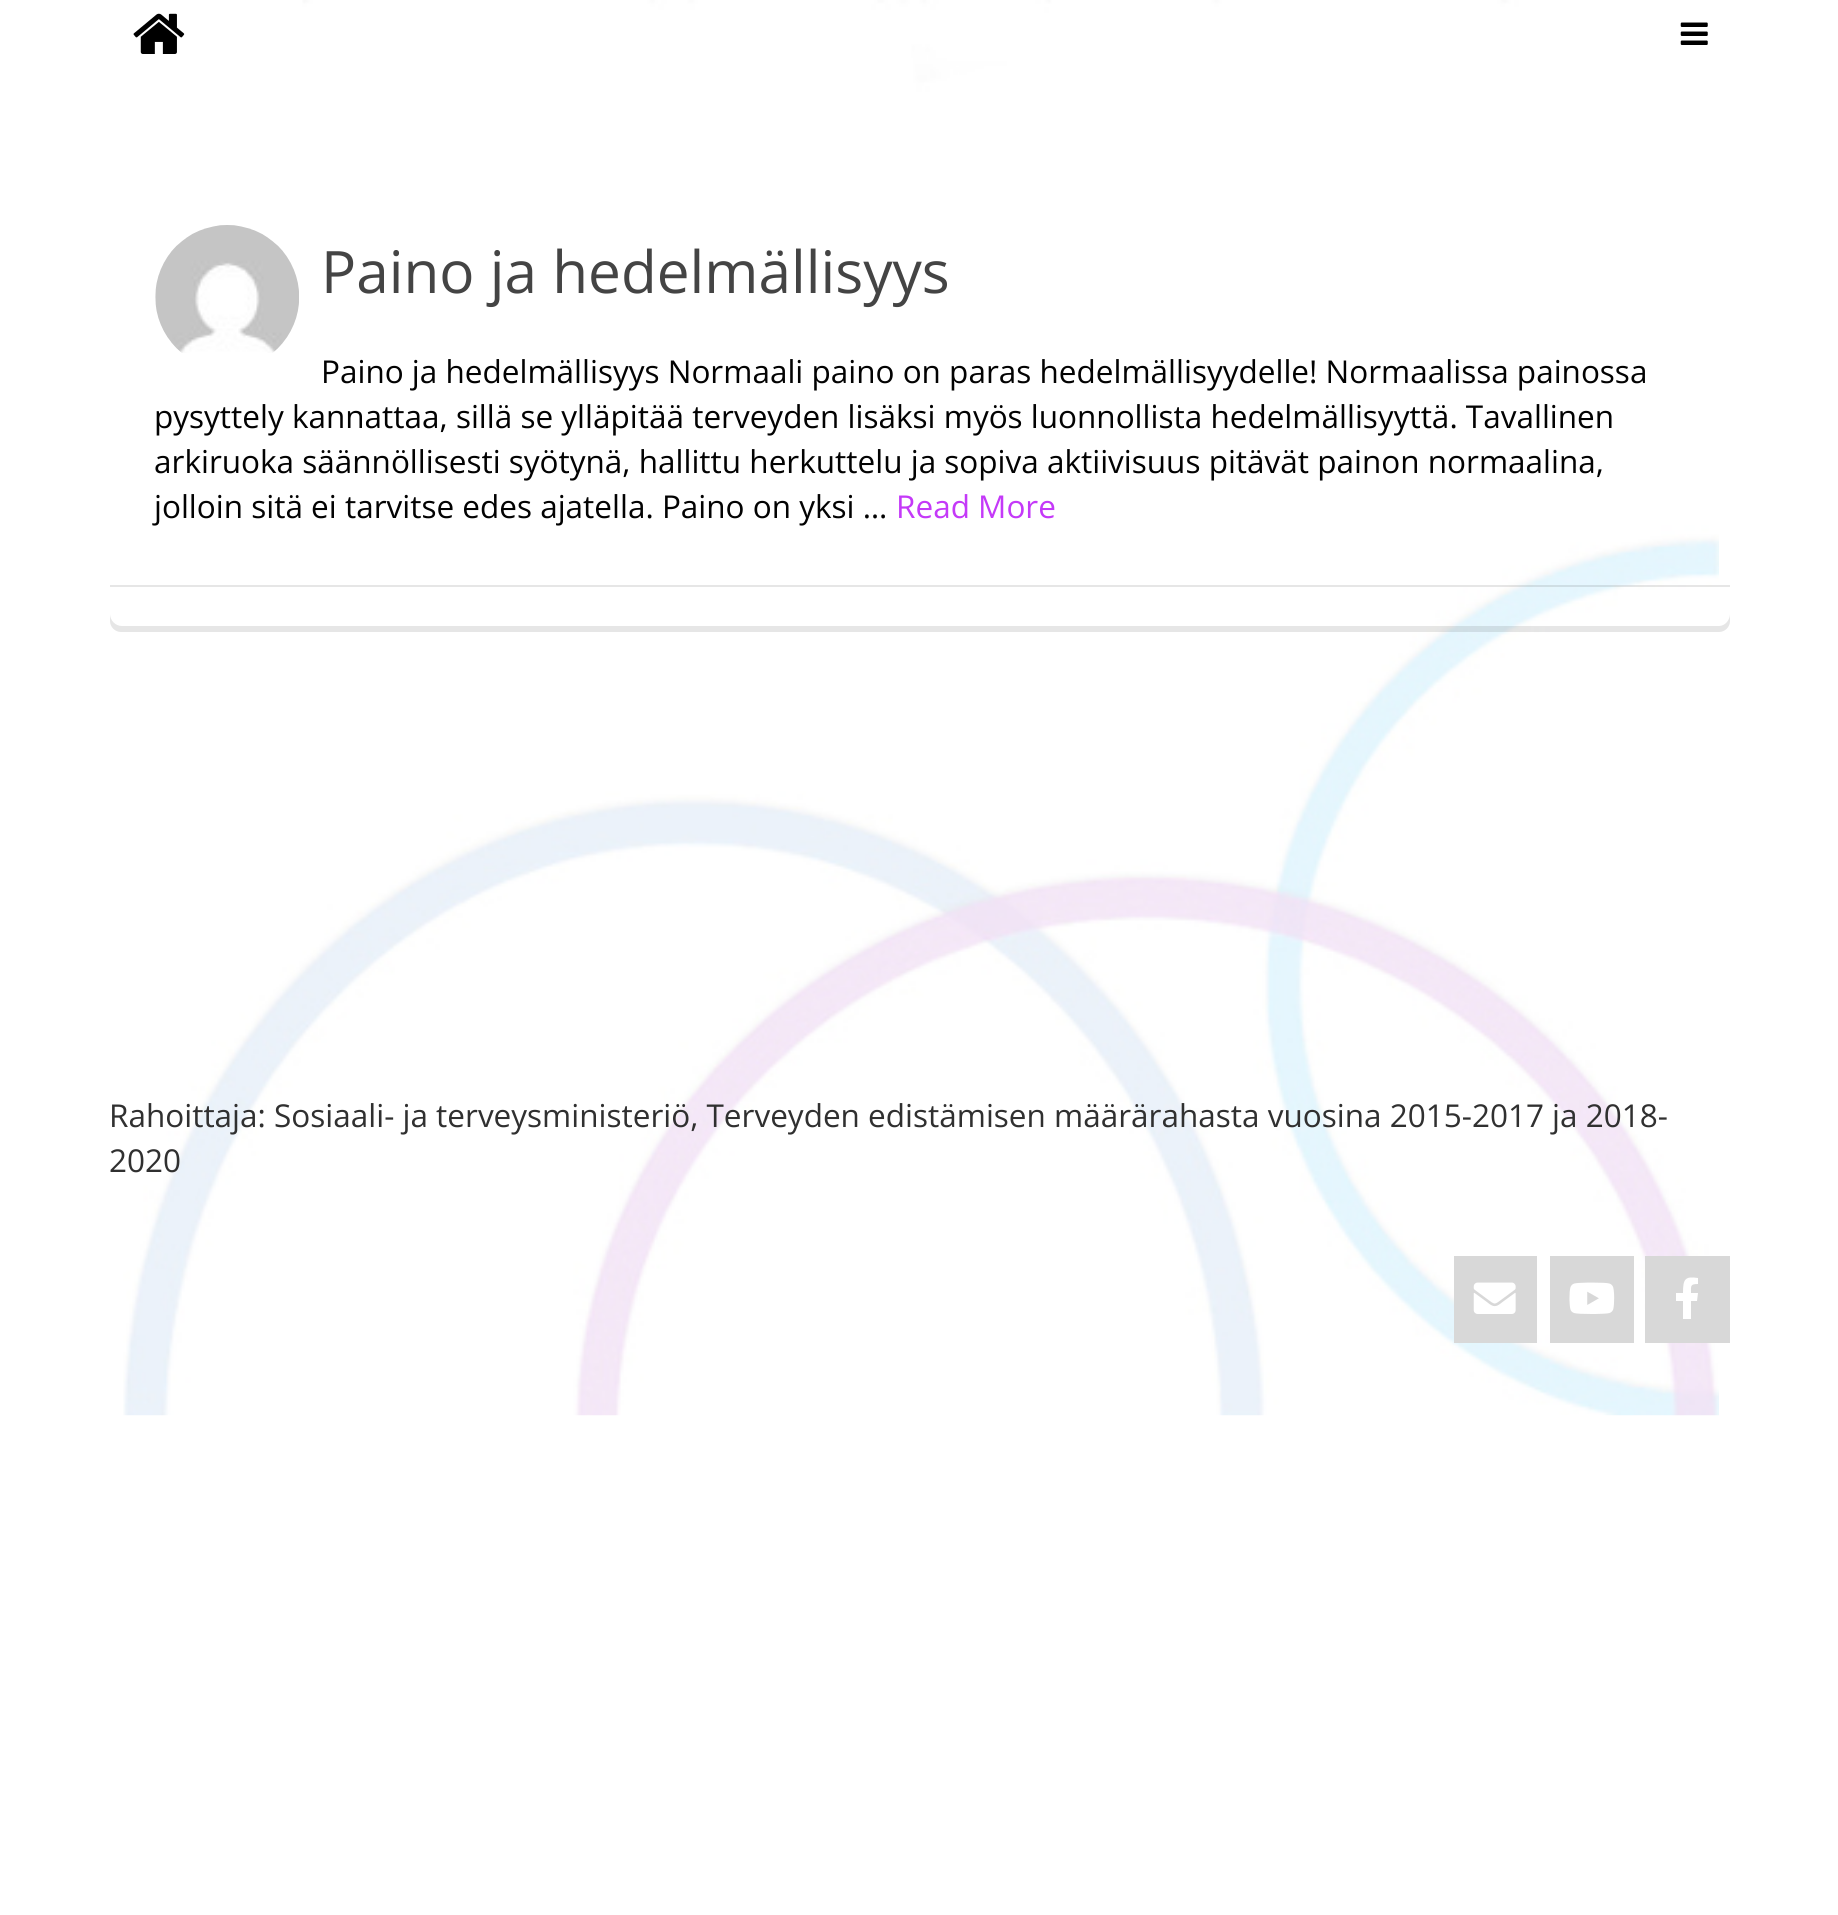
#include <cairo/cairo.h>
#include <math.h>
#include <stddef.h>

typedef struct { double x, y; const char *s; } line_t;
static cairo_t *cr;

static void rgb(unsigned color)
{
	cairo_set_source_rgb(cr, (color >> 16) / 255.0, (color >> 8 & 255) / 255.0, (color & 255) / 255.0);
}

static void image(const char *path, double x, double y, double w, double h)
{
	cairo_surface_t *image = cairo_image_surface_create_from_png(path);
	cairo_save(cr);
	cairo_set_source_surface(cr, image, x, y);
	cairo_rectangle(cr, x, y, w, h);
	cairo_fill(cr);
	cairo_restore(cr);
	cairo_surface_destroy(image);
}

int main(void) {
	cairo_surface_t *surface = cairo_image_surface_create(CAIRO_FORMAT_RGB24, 1838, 1915);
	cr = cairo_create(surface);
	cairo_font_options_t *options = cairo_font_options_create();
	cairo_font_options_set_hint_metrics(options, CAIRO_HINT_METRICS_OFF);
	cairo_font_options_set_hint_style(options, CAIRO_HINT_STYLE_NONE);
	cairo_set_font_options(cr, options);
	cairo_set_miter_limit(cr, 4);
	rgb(0xffffff);
	cairo_paint(cr);
	image("img/1.png", 123, 0, 1596, 1416);
	image("img/2.png", 133, 13, 52, 41);
	image("img/3.png", 1680, 22, 28, 23);
	image("img/4.png", 155, 225, 144, 128);
	cairo_set_source_rgba(cr, 0, 0, 0, 0.1);
	cairo_new_path(cr);
	cairo_move_to(cr, 110, 614);
	cairo_line_to(cr, 110, 621);
	cairo_curve_to(cr, 110, 627, 115, 632, 121, 632);
	cairo_line_to(cr, 1719, 632);
	cairo_curve_to(cr, 1725, 632, 1730, 627, 1730, 621);
	cairo_line_to(cr, 1730, 614);
	cairo_curve_to(cr, 1730, 620, 1725, 626, 1719, 626);
	cairo_line_to(cr, 122, 626);
	cairo_curve_to(cr, 115, 626, 110, 620, 110, 614);
	cairo_close_path(cr);
	cairo_fill(cr);
	cairo_rectangle(cr, 110, 585, 1620, 2);
	cairo_fill(cr);
	rgb(0xd8d8d8);
	cairo_rectangle(cr, 1454, 1256, 83, 87);
	cairo_fill(cr);
	image("img/5.png", 1473, 1282, 43, 32);
	cairo_rectangle(cr, 1550, 1256, 84, 87);
	cairo_fill(cr);
	image("img/6.png", 1569, 1282, 46, 32);
	cairo_rectangle(cr, 1645, 1256, 85, 87);
	cairo_fill(cr);
	rgb(0xffffff);
	cairo_new_path(cr);
	cairo_move_to(cr, 1697, 1301);
	cairo_line_to(cr, 1691, 1301);
	cairo_line_to(cr, 1691, 1319);
	cairo_line_to(cr, 1683, 1319);
	cairo_line_to(cr, 1683, 1301);
	cairo_line_to(cr, 1676, 1301);
	cairo_line_to(cr, 1676, 1293);
	cairo_line_to(cr, 1683, 1293);
	cairo_curve_to(cr, 1683, 1279, 1685, 1276, 1698, 1278);
	cairo_line_to(cr, 1698, 1284);
	cairo_curve_to(cr, 1690, 1284, 1691, 1286, 1691, 1293);
	cairo_line_to(cr, 1698, 1293);
	cairo_close_path(cr);
	cairo_fill(cr);
	cairo_select_font_face(cr, "Open Sans", CAIRO_FONT_SLANT_NORMAL, CAIRO_FONT_WEIGHT_NORMAL);
	cairo_set_font_size(cr, 58.5);
	rgb(0x444444);
	cairo_move_to(cr, 321, 293);
	cairo_show_text(cr, "Paino ja hedelmällisyys");
	cairo_set_font_size(cr, 31.5);
	rgb(0x020202);
	{
		static const line_t items[] = {
			{321, 383, "Paino ja hedelmällisyys Normaali paino on paras hedelmällisyydelle! Normaalissa painossa"},
			{154, 428, "pysyttely kannattaa, sillä se ylläpitää terveyden lisäksi myös luonnollista hedelmällisyyttä. Tavallinen"},
			{154, 473, "arkiruoka säännöllisesti syötynä, hallittu herkuttelu ja sopiva aktiivisuus pitävät painon normaalina,"},
			{154, 518, "jolloin sitä ei tarvitse edes ajatella. Paino on yksi …"},
		};
		for (size_t i = 0; i < sizeof items / sizeof *items; i++) {
			cairo_move_to(cr, items[i].x, items[i].y);
			cairo_show_text(cr, items[i].s);
		}
	}
	rgb(0xc439f8);
	cairo_move_to(cr, 896, 518);
	cairo_show_text(cr, "Read More");
	rgb(0x303030);
	cairo_move_to(cr, 109, 1127);
	cairo_show_text(cr, "Rahoittaja: Sosiaali- ja terveysministeriö, Terveyden edistämisen määrärahasta vuosina 2015-2017 ja 2018-");
	cairo_move_to(cr, 109, 1172);
	cairo_show_text(cr, "2020");
	cairo_surface_write_to_png(surface, "page.png");
	cairo_font_options_destroy(options);
	cairo_destroy(cr);
	cairo_surface_destroy(surface);
	return 0;
}
